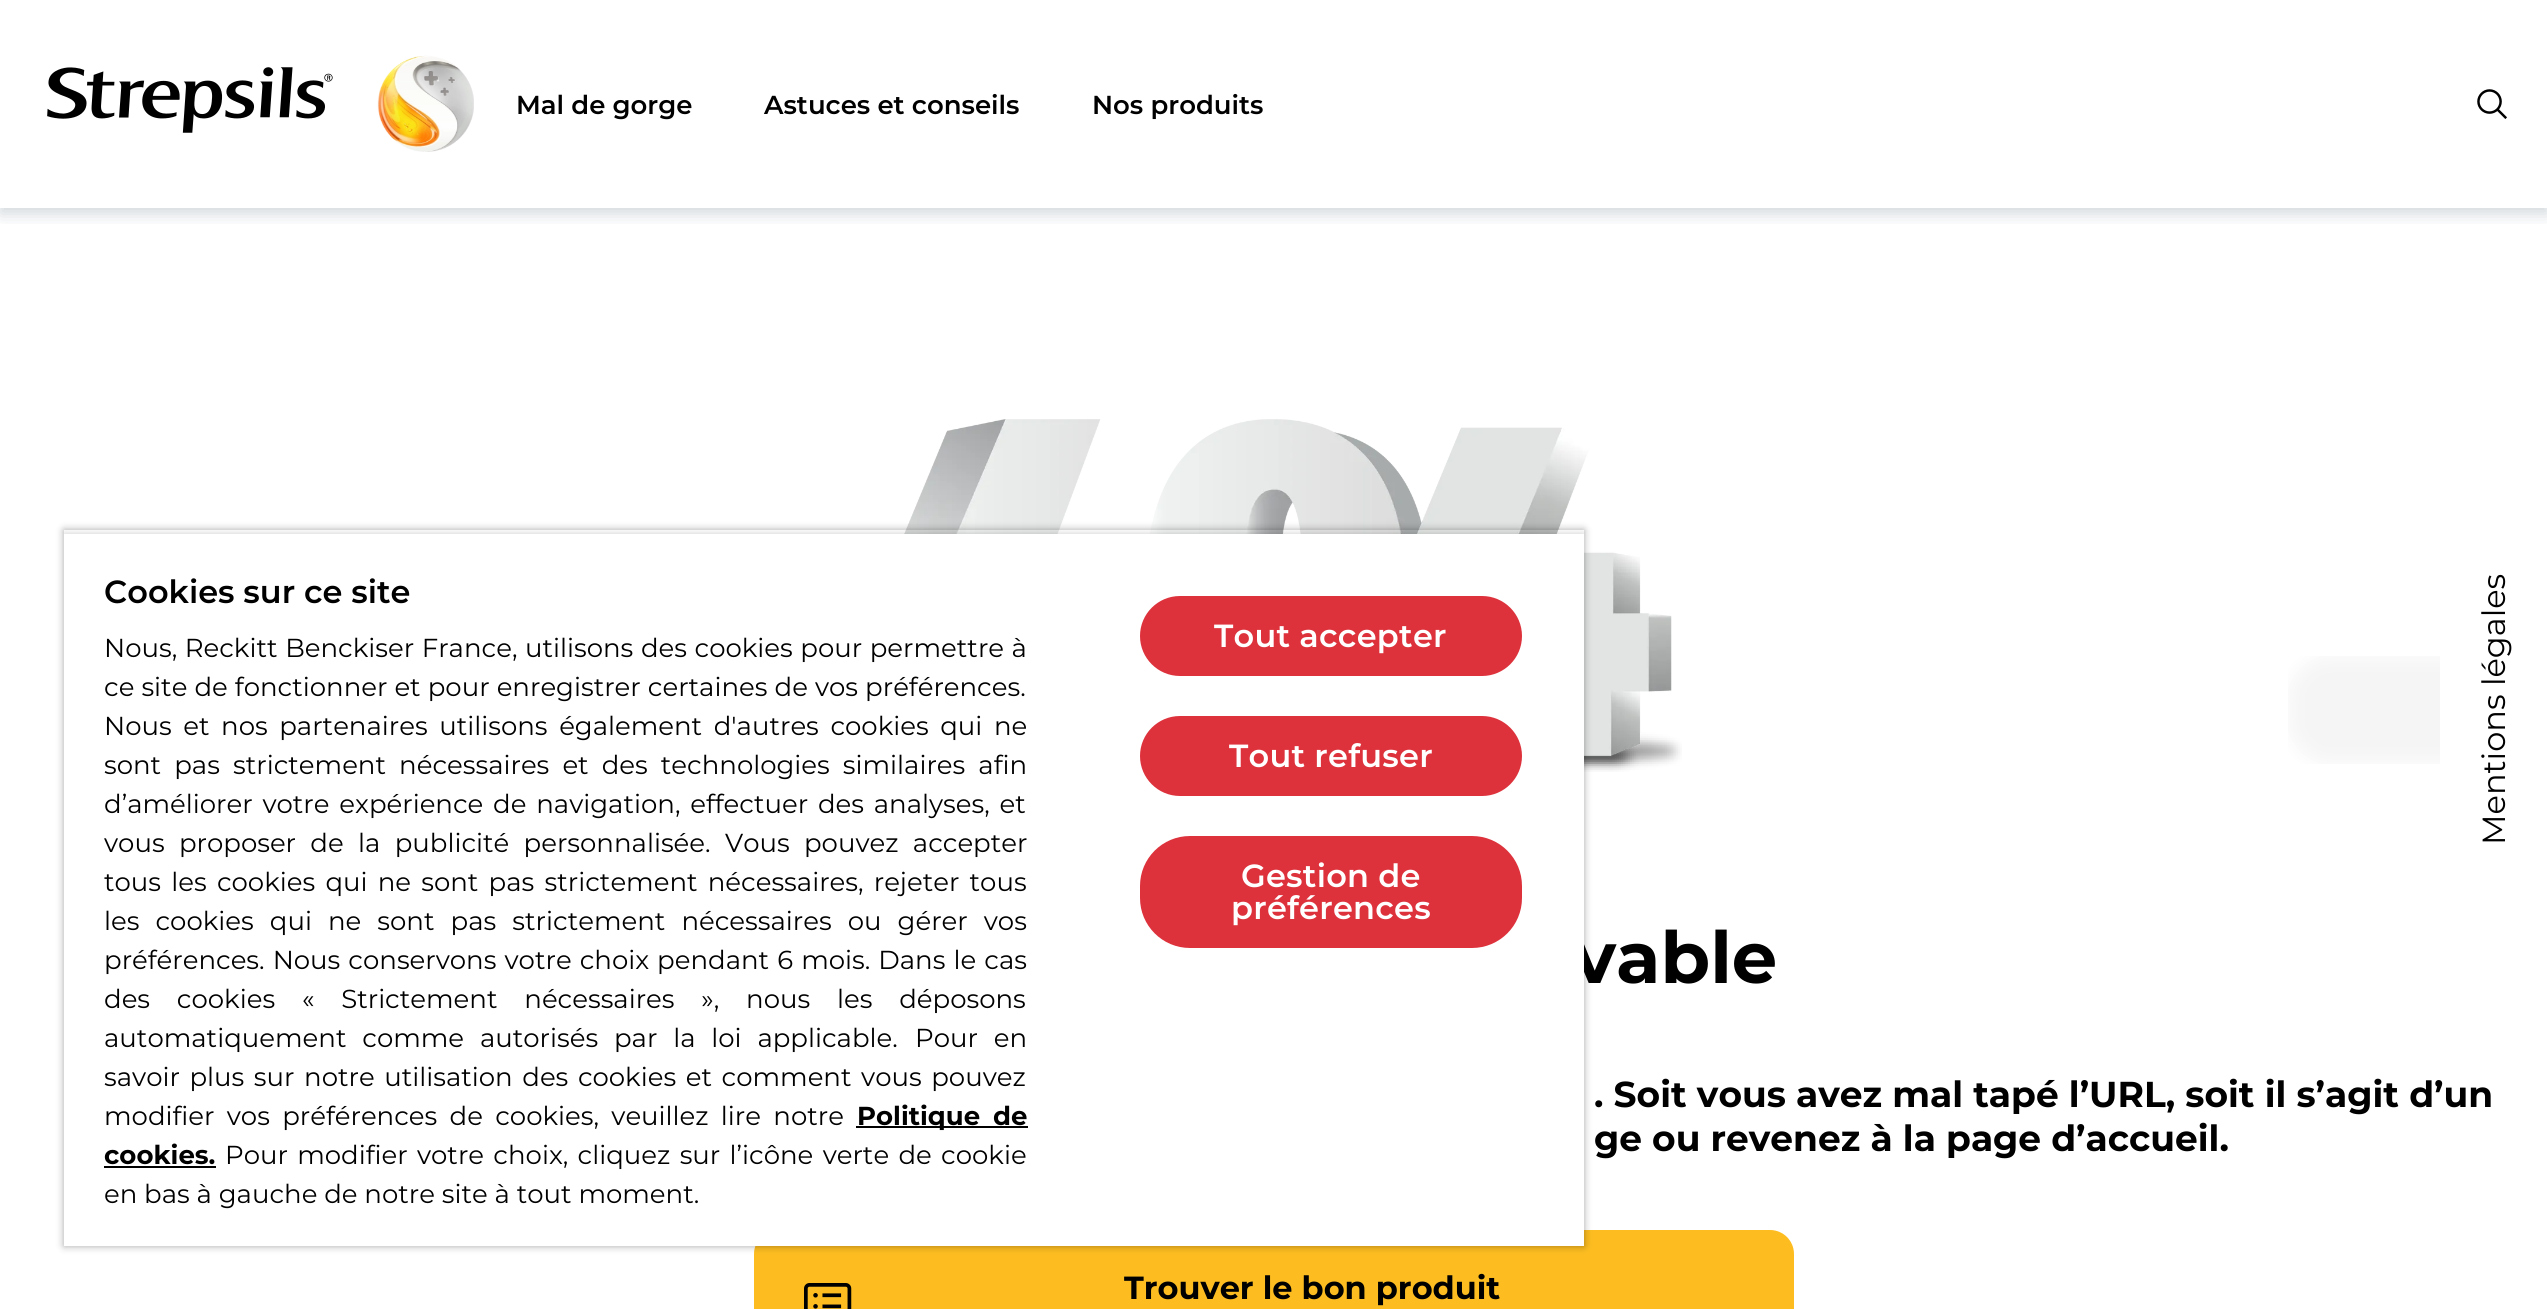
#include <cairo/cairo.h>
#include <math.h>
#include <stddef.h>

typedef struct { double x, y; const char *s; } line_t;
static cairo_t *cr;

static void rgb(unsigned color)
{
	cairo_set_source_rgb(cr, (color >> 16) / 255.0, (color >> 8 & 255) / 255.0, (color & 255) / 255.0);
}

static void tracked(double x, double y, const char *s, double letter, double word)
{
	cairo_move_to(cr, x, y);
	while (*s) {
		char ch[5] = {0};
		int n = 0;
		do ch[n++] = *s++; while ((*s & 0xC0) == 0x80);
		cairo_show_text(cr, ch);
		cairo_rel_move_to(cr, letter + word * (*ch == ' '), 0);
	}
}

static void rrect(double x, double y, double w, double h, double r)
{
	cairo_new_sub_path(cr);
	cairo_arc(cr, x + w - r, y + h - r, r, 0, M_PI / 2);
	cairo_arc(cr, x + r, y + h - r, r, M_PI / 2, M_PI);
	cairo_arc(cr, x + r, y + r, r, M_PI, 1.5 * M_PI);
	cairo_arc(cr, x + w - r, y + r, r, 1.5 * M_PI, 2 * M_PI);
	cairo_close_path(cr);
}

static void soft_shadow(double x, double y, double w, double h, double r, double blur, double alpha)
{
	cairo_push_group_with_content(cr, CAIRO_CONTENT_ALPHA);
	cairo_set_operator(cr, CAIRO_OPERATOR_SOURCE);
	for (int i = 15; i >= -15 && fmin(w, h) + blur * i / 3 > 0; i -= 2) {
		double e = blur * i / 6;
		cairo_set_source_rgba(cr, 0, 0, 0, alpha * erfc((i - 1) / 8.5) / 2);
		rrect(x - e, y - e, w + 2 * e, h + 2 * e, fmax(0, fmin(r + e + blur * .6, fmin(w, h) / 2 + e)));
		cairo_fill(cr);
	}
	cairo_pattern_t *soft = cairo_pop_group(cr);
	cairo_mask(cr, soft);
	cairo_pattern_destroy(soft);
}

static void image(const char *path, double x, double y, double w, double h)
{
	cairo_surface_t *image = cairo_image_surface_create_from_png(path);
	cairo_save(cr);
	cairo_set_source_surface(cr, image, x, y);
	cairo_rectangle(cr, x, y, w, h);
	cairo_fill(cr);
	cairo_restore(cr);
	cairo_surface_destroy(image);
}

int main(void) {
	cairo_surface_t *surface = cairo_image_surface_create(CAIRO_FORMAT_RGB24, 2547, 1309);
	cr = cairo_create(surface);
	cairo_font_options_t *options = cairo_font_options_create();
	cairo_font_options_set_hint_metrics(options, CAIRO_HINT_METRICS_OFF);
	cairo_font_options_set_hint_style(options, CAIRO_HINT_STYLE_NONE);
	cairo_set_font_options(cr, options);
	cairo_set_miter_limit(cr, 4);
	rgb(0xffffff);
	cairo_paint(cr);
	cairo_save(cr);
	cairo_rectangle(cr, 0, 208, 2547, 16);
	cairo_clip(cr);
	rgb(0x223c50);
	soft_shadow(0, 6, 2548, 208, 0, 8, 0.2);
	cairo_restore(cr);
	image("img/1.png", 47, 67, 286, 66);
	image("img/2.png", 377, 55, 97, 97);
	image("img/3.png", 2477, 89, 30, 30);
	cairo_save(cr);
	cairo_rectangle(cr, 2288, 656, 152, 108);
	cairo_clip(cr);
	rgb(0x000000);
	soft_shadow(2288, 656, 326, 108, 40, 9, 0.04);
	cairo_restore(cr);
	image("img/4.png", 904, 419, 778, 353);
	rgb(0xfdbd21);
	rrect(754, 1230, 1040, 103, 24);
	cairo_fill(cr);
	image("img/5.png", 804, 1283, 48, 26);
	cairo_save(cr);
	cairo_set_fill_rule(cr, CAIRO_FILL_RULE_EVEN_ODD);
	cairo_new_path(cr);
	cairo_move_to(cr, 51, 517);
	cairo_line_to(cr, 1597, 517);
	cairo_line_to(cr, 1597, 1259);
	cairo_line_to(cr, 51, 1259);
	cairo_close_path(cr);
	cairo_move_to(cr, 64, 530);
	cairo_line_to(cr, 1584, 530);
	cairo_line_to(cr, 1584, 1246);
	cairo_line_to(cr, 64, 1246);
	cairo_close_path(cr);
	cairo_clip(cr);
	rgb(0x000000);
	soft_shadow(64, 530, 1520, 716, 0, 4, 0.35);
	cairo_restore(cr);
	cairo_save(cr);
	cairo_rectangle(cr, 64, 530, 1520, 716);
	cairo_clip(cr);
	rgb(0x000000);
	soft_shadow(64, 534, 1520, 712, 0, 4, 0.2);
	cairo_restore(cr);
	cairo_select_font_face(cr, "Montserrat SemiBold", CAIRO_FONT_SLANT_NORMAL, CAIRO_FONT_WEIGHT_NORMAL);
	cairo_set_font_size(cr, 26);
	rgb(0x000000);
	{
		static const line_t items[] = {
			{516, 114, "Mal de gorge"},
			{764, 114, "Astuces et conseils"},
			{1092, 114, "Nos produits"},
		};
		for (size_t i = 0; i < sizeof items / sizeof *items; i++) {
			cairo_move_to(cr, items[i].x, items[i].y);
			cairo_show_text(cr, items[i].s);
		}
	}
	cairo_select_font_face(cr, "Montserrat", CAIRO_FONT_SLANT_NORMAL, CAIRO_FONT_WEIGHT_NORMAL);
	cairo_set_font_size(cr, 32);
	cairo_save(cr);
	cairo_translate(cr, 2505, 845);
	cairo_rotate(cr, -90 * M_PI / 180);
	cairo_move_to(cr, 0, 0);
	cairo_show_text(cr, "Mentions légales");
	cairo_restore(cr);
	cairo_select_font_face(cr, "Montserrat", CAIRO_FONT_SLANT_NORMAL, CAIRO_FONT_WEIGHT_BOLD);
	cairo_set_font_size(cr, 72);
	cairo_move_to(cr, 1573, 983);
	cairo_show_text(cr, "vable");
	cairo_set_font_size(cr, 36);
	cairo_move_to(cr, 1594, 1107);
	cairo_show_text(cr, ". Soit vous avez mal tapé l’URL, soit il s’agit d’un");
	cairo_move_to(cr, 1594, 1151);
	cairo_show_text(cr, "ge ou revenez à la page d’accueil.");
	cairo_set_font_size(cr, 32);
	cairo_move_to(cr, 1124, 1299);
	cairo_show_text(cr, "Trouver le bon produit");
	rgb(0xffffff);
	cairo_rectangle(cr, 64, 534, 1520, 712);
	cairo_fill(cr);
	cairo_select_font_face(cr, "Montserrat SemiBold", CAIRO_FONT_SLANT_NORMAL, CAIRO_FONT_WEIGHT_NORMAL);
	rgb(0x000000);
	cairo_move_to(cr, 104, 603);
	cairo_show_text(cr, "Cookies sur ce site");
	cairo_select_font_face(cr, "Montserrat", CAIRO_FONT_SLANT_NORMAL, CAIRO_FONT_WEIGHT_NORMAL);
	cairo_set_font_size(cr, 26);
	tracked(104, 657, "Nous, Reckitt Benckiser France, utilisons des cookies pour permettre à", 0, 0.75);
	tracked(104, 696, "ce site de fonctionner et pour enregistrer certaines de vos préférences.", 0, 0.25);
	tracked(104, 735, "Nous et nos partenaires utilisons également d'autres cookies qui ne", 0, 4.75);
	tracked(104, 774, "sont pas strictement nécessaires et des technologies similaires afin", 0, 6.25);
	tracked(104, 813, "d’améliorer votre expérience de navigation, effectuer des analyses, et", 0, 3);
	tracked(104, 852, "vous proposer de la publicité personnalisée.", 0, 7.5);
	tracked(725, 852, "Vous pouvez accepter", 0, 7.5);
	tracked(104, 891, "tous les cookies qui ne sont pas strictement nécessaires, rejeter tous", 0, 3.4);
	tracked(104, 930, "les cookies qui ne sont pas strictement nécessaires ou gérer vos", 0, 9.25);
	tracked(104, 969, "préférences. Nous conservons votre choix pendant 6 mois. Dans le cas", 0, 1.25);
	tracked(104, 1008, "des cookies « Strictement nécessaires », nous les déposons", 0, 20);
	tracked(104, 1047, "automatiquement comme autorisés par la loi applicable.", 0, 9);
	tracked(915, 1047, "Pour en", 0, 9);
	tracked(104, 1086, "savoir plus sur notre utilisation des cookies et comment vous pouvez", 0, 2.75);
	tracked(104, 1125, "modifier vos préférences de cookies, veuillez lire notre", 0, 5.5);
	cairo_rectangle(cr, 856, 1126, 172, 2);
	cairo_fill(cr);
	cairo_select_font_face(cr, "Montserrat", CAIRO_FONT_SLANT_NORMAL, CAIRO_FONT_WEIGHT_BOLD);
	tracked(857, 1125, "Politique de", 0, 5.5);
	cairo_move_to(cr, 104, 1164);
	cairo_show_text(cr, "cookies.");
	cairo_rectangle(cr, 104, 1166, 112, 2);
	cairo_fill(cr);
	cairo_select_font_face(cr, "Montserrat", CAIRO_FONT_SLANT_NORMAL, CAIRO_FONT_WEIGHT_NORMAL);
	tracked(225, 1164, "Pour modifier votre choix, cliquez sur l’icône verte de cookie", 0, 2.5);
	cairo_move_to(cr, 104, 1203);
	cairo_show_text(cr, "en bas à gauche de notre site à tout moment.");
	rgb(0xdd323c);
	rrect(1140, 596, 382, 80, 40);
	cairo_fill(cr);
	cairo_select_font_face(cr, "Montserrat SemiBold", CAIRO_FONT_SLANT_NORMAL, CAIRO_FONT_WEIGHT_NORMAL);
	cairo_set_font_size(cr, 32);
	rgb(0xffffff);
	tracked(1214, 647, "Tout accepter", 0.25, 0);
	rgb(0xdd323c);
	rrect(1140, 716, 382, 80, 40);
	cairo_fill(cr);
	rgb(0xffffff);
	tracked(1229, 767, "Tout refuser", 0.25, 0);
	rgb(0xdd323c);
	rrect(1140, 836, 382, 112, 50);
	cairo_fill(cr);
	rgb(0xffffff);
	tracked(1241, 887, "Gestion de", 0.25, 0);
	tracked(1231, 919, "préférences", 0.25, 0);
	cairo_surface_write_to_png(surface, "page.png");
	cairo_font_options_destroy(options);
	cairo_destroy(cr);
	cairo_surface_destroy(surface);
	return 0;
}
